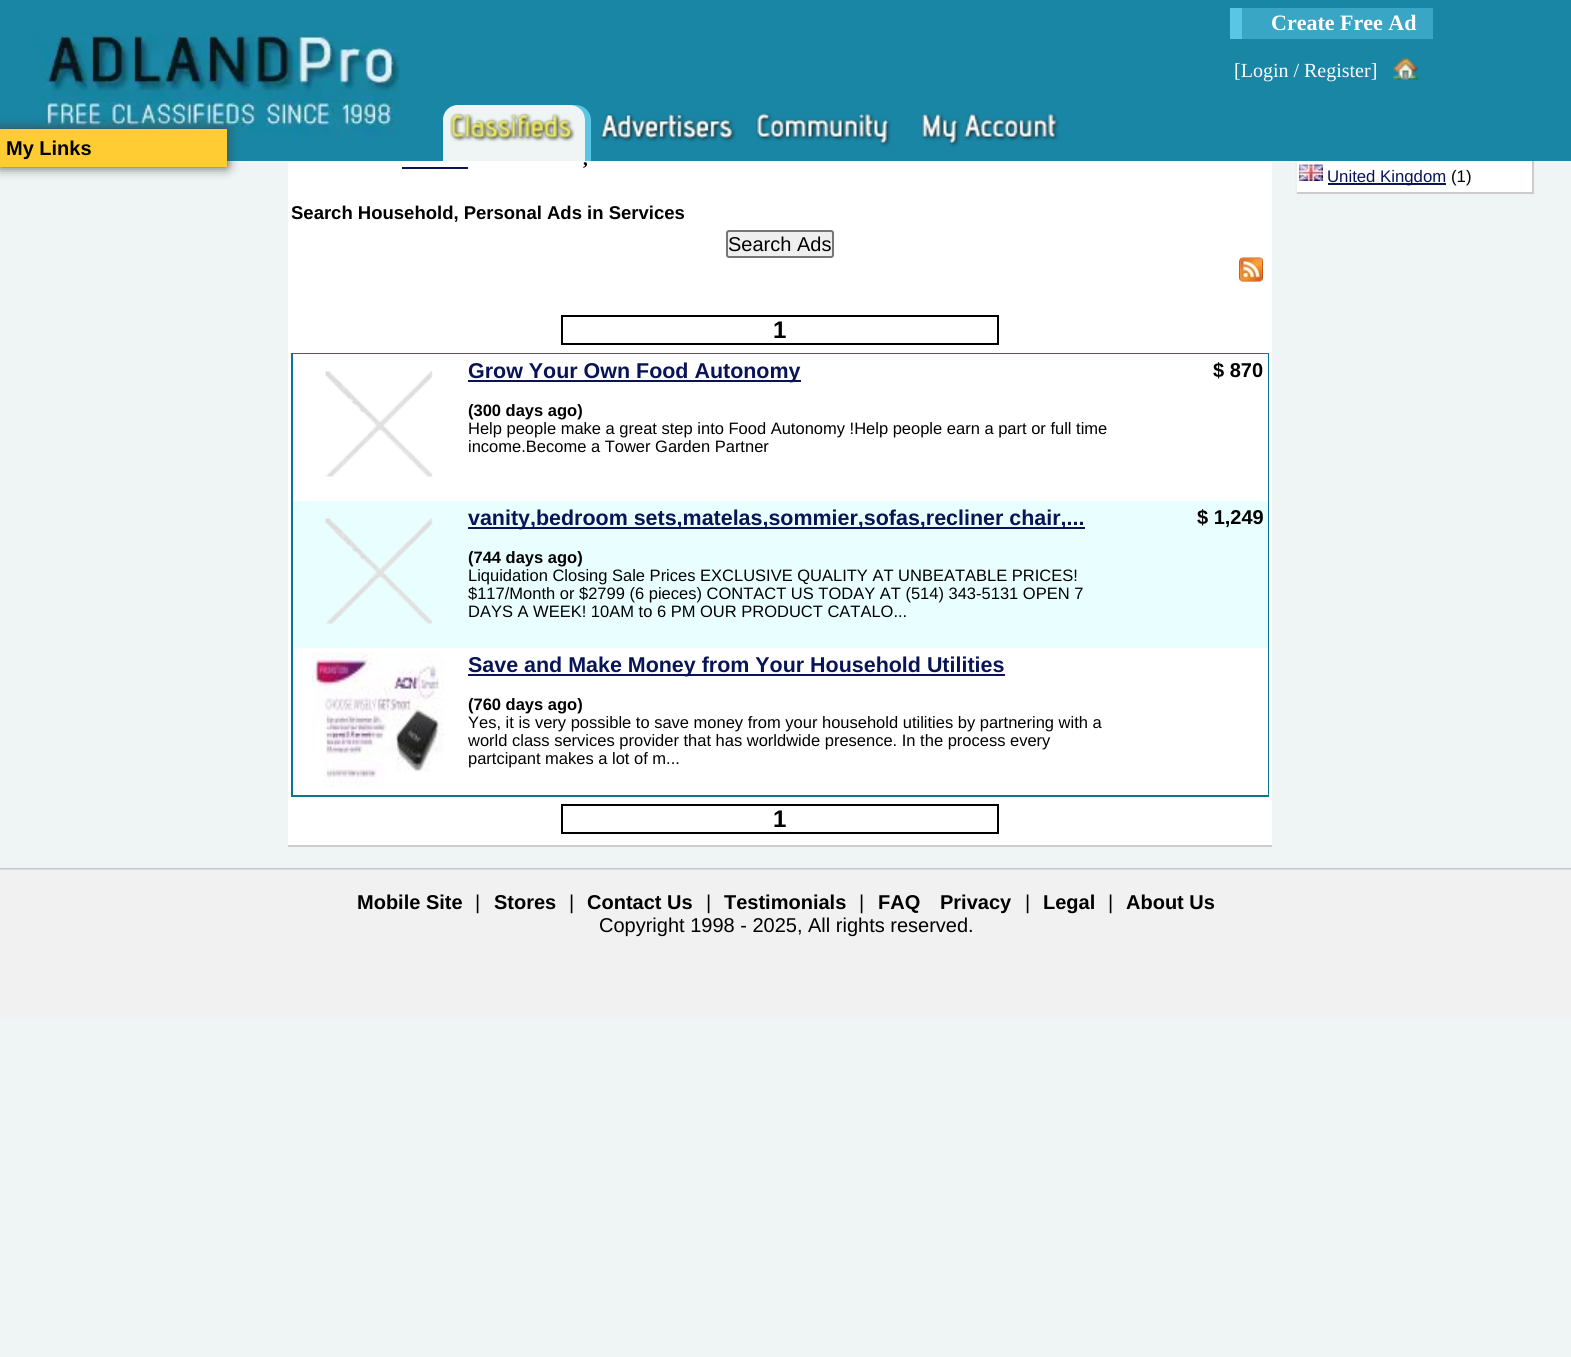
#include <cairo/cairo.h>
#include <math.h>
#include <stddef.h>

typedef struct { double x, y; const char *s; } line_t;
typedef struct { double x, y, w, h; unsigned color; } box_t;
static cairo_t *cr;

static void rgb(unsigned color)
{
	cairo_set_source_rgb(cr, (color >> 16) / 255.0, (color >> 8 & 255) / 255.0, (color & 255) / 255.0);
}

static void rrect(double x, double y, double w, double h, double r)
{
	cairo_new_sub_path(cr);
	cairo_arc(cr, x + w - r, y + h - r, r, 0, M_PI / 2);
	cairo_arc(cr, x + r, y + h - r, r, M_PI / 2, M_PI);
	cairo_arc(cr, x + r, y + r, r, M_PI, 1.5 * M_PI);
	cairo_arc(cr, x + w - r, y + r, r, 1.5 * M_PI, 2 * M_PI);
	cairo_close_path(cr);
}

static void soft_shadow(double x, double y, double w, double h, double r, double blur, double alpha)
{
	cairo_push_group_with_content(cr, CAIRO_CONTENT_ALPHA);
	cairo_set_operator(cr, CAIRO_OPERATOR_SOURCE);
	for (int i = 15; i >= -15 && fmin(w, h) + blur * i / 3 > 0; i -= 2) {
		double e = blur * i / 6;
		cairo_set_source_rgba(cr, 0, 0, 0, alpha * erfc((i - 1) / 8.5) / 2);
		rrect(x - e, y - e, w + 2 * e, h + 2 * e, fmax(0, fmin(r + e + blur * .6, fmin(w, h) / 2 + e)));
		cairo_fill(cr);
	}
	cairo_pattern_t *soft = cairo_pop_group(cr);
	cairo_mask(cr, soft);
	cairo_pattern_destroy(soft);
}

static void image(const char *path, double x, double y, double w, double h)
{
	cairo_surface_t *image = cairo_image_surface_create_from_png(path);
	cairo_save(cr);
	cairo_set_source_surface(cr, image, x, y);
	cairo_rectangle(cr, x, y, w, h);
	cairo_fill(cr);
	cairo_restore(cr);
	cairo_surface_destroy(image);
}

int main(void) {
	cairo_surface_t *surface = cairo_image_surface_create(CAIRO_FORMAT_RGB24, 1571, 1357);
	cr = cairo_create(surface);
	cairo_font_options_t *options = cairo_font_options_create();
	cairo_font_options_set_hint_metrics(options, CAIRO_HINT_METRICS_OFF);
	cairo_font_options_set_hint_style(options, CAIRO_HINT_STYLE_NONE);
	cairo_set_font_options(cr, options);
	cairo_set_miter_limit(cr, 4);
	rgb(0xeff5f5);
	cairo_paint(cr);
	rgb(0x1986a5);
	cairo_rectangle(cr, 0, 0, 1571, 161);
	cairo_fill(cr);
	image("img/1.png", 33, 34, 367, 103);
	rgb(0x39a6c5);
	cairo_rectangle(cr, 1242, 8, 191, 31);
	cairo_fill(cr);
	rgb(0x59c6e5);
	cairo_rectangle(cr, 1230, 8, 12, 31);
	cairo_fill(cr);
	image("img/2.png", 1393, 57, 25, 23);
	cairo_new_path(cr);
	cairo_move_to(cr, 449, 160);
	cairo_line_to(cr, 449, 161);
	cairo_line_to(cr, 591, 161);
	cairo_line_to(cr, 591, 120);
	cairo_curve_to(cr, 591, 112, 584, 105, 576, 105);
	cairo_line_to(cr, 570, 105);
	cairo_curve_to(cr, 578, 105, 585, 112, 585, 120);
	cairo_line_to(cr, 585, 160);
	cairo_close_path(cr);
	cairo_fill(cr);
	rgb(0xeff5f5);
	cairo_new_path(cr);
	cairo_move_to(cr, 458, 105);
	cairo_line_to(cr, 570, 105);
	cairo_curve_to(cr, 578.5, 105, 585, 111.5, 585, 120);
	cairo_line_to(cr, 585, 161);
	cairo_line_to(cr, 443, 161);
	cairo_line_to(cr, 443, 120);
	cairo_curve_to(cr, 443, 111.5, 449.5, 105, 458, 105);
	cairo_close_path(cr);
	cairo_fill(cr);
	image("img/3.png", 450, 112, 125, 30);
	image("img/4.png", 600, 113, 136, 29);
	image("img/5.png", 756, 112, 136, 35);
	image("img/6.png", 921, 112, 139, 35);
	rgb(0x444444);
	soft_shadow(0, 129, 227, 38, 0, 6, 1);
	{
		static const box_t items[] = {
			{0, 129, 227, 38, 0xffcc33},
			{288, 161, 984, 684, 0xffffff},
			{288, 845, 984, 2, 0xcccccc},
			{402, 167, 66, 2, 0x091456},
		};
		for (size_t i = 0; i < sizeof items / sizeof *items; i++) {
			rgb(items[i].color);
			cairo_rectangle(cr, items[i].x, items[i].y, items[i].w, items[i].h);
			cairo_fill(cr);
		}
	}
	rgb(0xefefef);
	rrect(727, 231, 106, 26, 2);
	cairo_fill_preserve(cr);
	rgb(0x767676);
	cairo_stroke(cr);
	image("img/7.png", 1239, 257, 24, 25);
	cairo_rectangle(cr, 562, 316, 436, 28);
	rgb(0x000000);
	cairo_stroke(cr);
	cairo_rectangle(cr, 292, 354, 976, 442);
	rgb(0x0a778b);
	cairo_stroke(cr);
	rgb(0xffffff);
	cairo_rectangle(cr, 293, 354, 975, 147);
	cairo_fill(cr);
	image("img/8.png", 325, 371, 108, 106);
	rgb(0x091456);
	cairo_rectangle(cr, 468, 380, 333, 2);
	cairo_fill(cr);
	rgb(0xe9ffff);
	cairo_rectangle(cr, 293, 501, 975, 147);
	cairo_fill(cr);
	image("img/9.png", 325, 518, 108, 106);
	rgb(0x091456);
	cairo_rectangle(cr, 468, 527, 617, 2);
	cairo_fill(cr);
	rgb(0xffffff);
	cairo_rectangle(cr, 1267, 648, 1, 147);
	cairo_fill(cr);
	image("img/10.png", 312, 652, 132, 135);
	rgb(0x091456);
	cairo_rectangle(cr, 468, 674, 537, 2);
	cairo_fill(cr);
	cairo_rectangle(cr, 562, 805, 436, 28);
	rgb(0x000000);
	cairo_stroke(cr);
	{
		static const box_t items[] = {
			{1297, 161, 235, 31, 0xffffff},
			{1532, 161, 2, 33, 0xcccccc},
			{1295, 192, 238, 2, 0xcccccc},
			{1295, 161, 2, 33, 0xeeeeee},
		};
		for (size_t i = 0; i < sizeof items / sizeof *items; i++) {
			rgb(items[i].color);
			cairo_rectangle(cr, items[i].x, items[i].y, items[i].w, items[i].h);
			cairo_fill(cr);
		}
	}
	image("img/11.png", 1299, 164, 24, 17);
	rgb(0x091456);
	cairo_rectangle(cr, 1328, 183, 118, 2);
	cairo_fill(cr);
	rgb(0xf1f1f1);
	cairo_rectangle(cr, 0, 870, 1571, 149);
	cairo_fill(cr);
	image("img/12.png", 0, 868, 1571, 2);
	cairo_select_font_face(cr, "Liberation Serif", CAIRO_FONT_SLANT_NORMAL, CAIRO_FONT_WEIGHT_BOLD);
	cairo_set_font_size(cr, 22);
	rgb(0xffffff);
	cairo_move_to(cr, 1271, 30);
	cairo_show_text(cr, "Create Free Ad");
	cairo_select_font_face(cr, "Liberation Serif", CAIRO_FONT_SLANT_NORMAL, CAIRO_FONT_WEIGHT_NORMAL);
	cairo_set_font_size(cr, 20);
	cairo_move_to(cr, 1234, 77);
	cairo_show_text(cr, "[Login / Register]");
	cairo_select_font_face(cr, "Liberation Sans", CAIRO_FONT_SLANT_NORMAL, CAIRO_FONT_WEIGHT_BOLD);
	rgb(0x000000);
	cairo_move_to(cr, 6, 155);
	cairo_show_text(cr, "My Links");
	cairo_select_font_face(cr, "Liberation Serif", CAIRO_FONT_SLANT_NORMAL, CAIRO_FONT_WEIGHT_BOLD);
	cairo_set_font_size(cr, 19);
	cairo_move_to(cr, 583, 165);
	cairo_show_text(cr, ",");
	cairo_select_font_face(cr, "Liberation Sans", CAIRO_FONT_SLANT_NORMAL, CAIRO_FONT_WEIGHT_BOLD);
	cairo_set_font_size(cr, 18.5);
	cairo_move_to(cr, 291, 219);
	cairo_show_text(cr, "Search Household, Personal Ads in Services");
	cairo_select_font_face(cr, "Liberation Sans", CAIRO_FONT_SLANT_NORMAL, CAIRO_FONT_WEIGHT_NORMAL);
	cairo_set_font_size(cr, 20);
	cairo_move_to(cr, 728, 251);
	cairo_show_text(cr, "Search Ads");
	cairo_select_font_face(cr, "Liberation Sans", CAIRO_FONT_SLANT_NORMAL, CAIRO_FONT_WEIGHT_BOLD);
	cairo_set_font_size(cr, 24);
	cairo_move_to(cr, 773, 338);
	cairo_show_text(cr, "1");
	cairo_set_font_size(cr, 21.45);
	rgb(0x091456);
	cairo_move_to(cr, 468, 378);
	cairo_show_text(cr, "Grow Your Own Food Autonomy");
	cairo_set_font_size(cr, 16.5);
	rgb(0x000000);
	cairo_move_to(cr, 468, 416);
	cairo_show_text(cr, "(300 days ago)");
	cairo_select_font_face(cr, "Liberation Sans", CAIRO_FONT_SLANT_NORMAL, CAIRO_FONT_WEIGHT_NORMAL);
	cairo_move_to(cr, 468, 434);
	cairo_show_text(cr, "Help people make a great step into Food Autonomy !Help people earn a part or full time");
	cairo_move_to(cr, 468, 452);
	cairo_show_text(cr, "income.Become a Tower Garden Partner");
	cairo_select_font_face(cr, "Liberation Sans", CAIRO_FONT_SLANT_NORMAL, CAIRO_FONT_WEIGHT_BOLD);
	cairo_set_font_size(cr, 20);
	cairo_move_to(cr, 1213, 377);
	cairo_show_text(cr, "$ 870");
	cairo_set_font_size(cr, 21.45);
	rgb(0x091456);
	cairo_move_to(cr, 468, 525);
	cairo_show_text(cr, "vanity,bedroom sets,matelas,sommier,sofas,recliner chair,...");
	cairo_set_font_size(cr, 16.5);
	rgb(0x000000);
	cairo_move_to(cr, 468, 563);
	cairo_show_text(cr, "(744 days ago)");
	cairo_select_font_face(cr, "Liberation Sans", CAIRO_FONT_SLANT_NORMAL, CAIRO_FONT_WEIGHT_NORMAL);
	{
		static const line_t items[] = {
			{468, 581, "Liquidation Closing Sale Prices EXCLUSIVE QUALITY AT UNBEATABLE PRICES!"},
			{468, 599, "$117/Month or $2799 (6 pieces) CONTACT US TODAY AT (514) 343-5131 OPEN 7"},
			{468, 617, "DAYS A WEEK! 10AM to 6 PM OUR PRODUCT CATALO..."},
		};
		for (size_t i = 0; i < sizeof items / sizeof *items; i++) {
			cairo_move_to(cr, items[i].x, items[i].y);
			cairo_show_text(cr, items[i].s);
		}
	}
	cairo_select_font_face(cr, "Liberation Sans", CAIRO_FONT_SLANT_NORMAL, CAIRO_FONT_WEIGHT_BOLD);
	cairo_set_font_size(cr, 20);
	cairo_move_to(cr, 1197, 524);
	cairo_show_text(cr, "$ 1,249");
	cairo_set_font_size(cr, 21.45);
	rgb(0x091456);
	cairo_move_to(cr, 468, 672);
	cairo_show_text(cr, "Save and Make Money from Your Household Utilities");
	cairo_set_font_size(cr, 16.5);
	rgb(0x000000);
	cairo_move_to(cr, 468, 710);
	cairo_show_text(cr, "(760 days ago)");
	cairo_select_font_face(cr, "Liberation Sans", CAIRO_FONT_SLANT_NORMAL, CAIRO_FONT_WEIGHT_NORMAL);
	{
		static const line_t items[] = {
			{468, 728, "Yes, it is very possible to save money from your household utilities by partnering with a"},
			{468, 746, "world class services provider that has worldwide presence. In the process every"},
			{468, 764, "partcipant makes a lot of m..."},
		};
		for (size_t i = 0; i < sizeof items / sizeof *items; i++) {
			cairo_move_to(cr, items[i].x, items[i].y);
			cairo_show_text(cr, items[i].s);
		}
	}
	cairo_select_font_face(cr, "Liberation Sans", CAIRO_FONT_SLANT_NORMAL, CAIRO_FONT_WEIGHT_BOLD);
	cairo_set_font_size(cr, 24);
	cairo_move_to(cr, 773, 827);
	cairo_show_text(cr, "1");
	cairo_select_font_face(cr, "Liberation Sans", CAIRO_FONT_SLANT_NORMAL, CAIRO_FONT_WEIGHT_NORMAL);
	cairo_set_font_size(cr, 16.75);
	rgb(0x091456);
	cairo_move_to(cr, 1327, 182);
	cairo_show_text(cr, "United Kingdom");
	rgb(0x000000);
	cairo_move_to(cr, 1451, 182);
	cairo_show_text(cr, "(1)");
	cairo_select_font_face(cr, "Liberation Sans", CAIRO_FONT_SLANT_NORMAL, CAIRO_FONT_WEIGHT_BOLD);
	cairo_set_font_size(cr, 20);
	cairo_move_to(cr, 357, 909);
	cairo_show_text(cr, "Mobile Site");
	cairo_select_font_face(cr, "Liberation Sans", CAIRO_FONT_SLANT_NORMAL, CAIRO_FONT_WEIGHT_NORMAL);
	cairo_move_to(cr, 475, 909);
	cairo_show_text(cr, "|");
	cairo_select_font_face(cr, "Liberation Sans", CAIRO_FONT_SLANT_NORMAL, CAIRO_FONT_WEIGHT_BOLD);
	cairo_move_to(cr, 494, 909);
	cairo_show_text(cr, "Stores");
	cairo_select_font_face(cr, "Liberation Sans", CAIRO_FONT_SLANT_NORMAL, CAIRO_FONT_WEIGHT_NORMAL);
	cairo_move_to(cr, 569, 909);
	cairo_show_text(cr, "|");
	cairo_select_font_face(cr, "Liberation Sans", CAIRO_FONT_SLANT_NORMAL, CAIRO_FONT_WEIGHT_BOLD);
	cairo_move_to(cr, 587, 909);
	cairo_show_text(cr, "Contact Us");
	cairo_select_font_face(cr, "Liberation Sans", CAIRO_FONT_SLANT_NORMAL, CAIRO_FONT_WEIGHT_NORMAL);
	cairo_move_to(cr, 706, 909);
	cairo_show_text(cr, "|");
	cairo_select_font_face(cr, "Liberation Sans", CAIRO_FONT_SLANT_NORMAL, CAIRO_FONT_WEIGHT_BOLD);
	cairo_move_to(cr, 724, 909);
	cairo_show_text(cr, "Testimonials");
	cairo_select_font_face(cr, "Liberation Sans", CAIRO_FONT_SLANT_NORMAL, CAIRO_FONT_WEIGHT_NORMAL);
	cairo_move_to(cr, 859, 909);
	cairo_show_text(cr, "|");
	cairo_select_font_face(cr, "Liberation Sans", CAIRO_FONT_SLANT_NORMAL, CAIRO_FONT_WEIGHT_BOLD);
	cairo_move_to(cr, 878, 909);
	cairo_show_text(cr, "FAQ");
	cairo_move_to(cr, 940, 909);
	cairo_show_text(cr, "Privacy");
	cairo_select_font_face(cr, "Liberation Sans", CAIRO_FONT_SLANT_NORMAL, CAIRO_FONT_WEIGHT_NORMAL);
	cairo_move_to(cr, 1025, 909);
	cairo_show_text(cr, "|");
	cairo_select_font_face(cr, "Liberation Sans", CAIRO_FONT_SLANT_NORMAL, CAIRO_FONT_WEIGHT_BOLD);
	cairo_move_to(cr, 1043, 909);
	cairo_show_text(cr, "Legal");
	cairo_select_font_face(cr, "Liberation Sans", CAIRO_FONT_SLANT_NORMAL, CAIRO_FONT_WEIGHT_NORMAL);
	cairo_move_to(cr, 1108, 909);
	cairo_show_text(cr, "|");
	cairo_select_font_face(cr, "Liberation Sans", CAIRO_FONT_SLANT_NORMAL, CAIRO_FONT_WEIGHT_BOLD);
	cairo_move_to(cr, 1126, 909);
	cairo_show_text(cr, "About Us");
	cairo_select_font_face(cr, "Liberation Sans", CAIRO_FONT_SLANT_NORMAL, CAIRO_FONT_WEIGHT_NORMAL);
	cairo_move_to(cr, 599, 932);
	cairo_show_text(cr, "Copyright 1998 - 2025, All rights reserved.");
	cairo_surface_write_to_png(surface, "page.png");
	cairo_font_options_destroy(options);
	cairo_destroy(cr);
	cairo_surface_destroy(surface);
	return 0;
}
